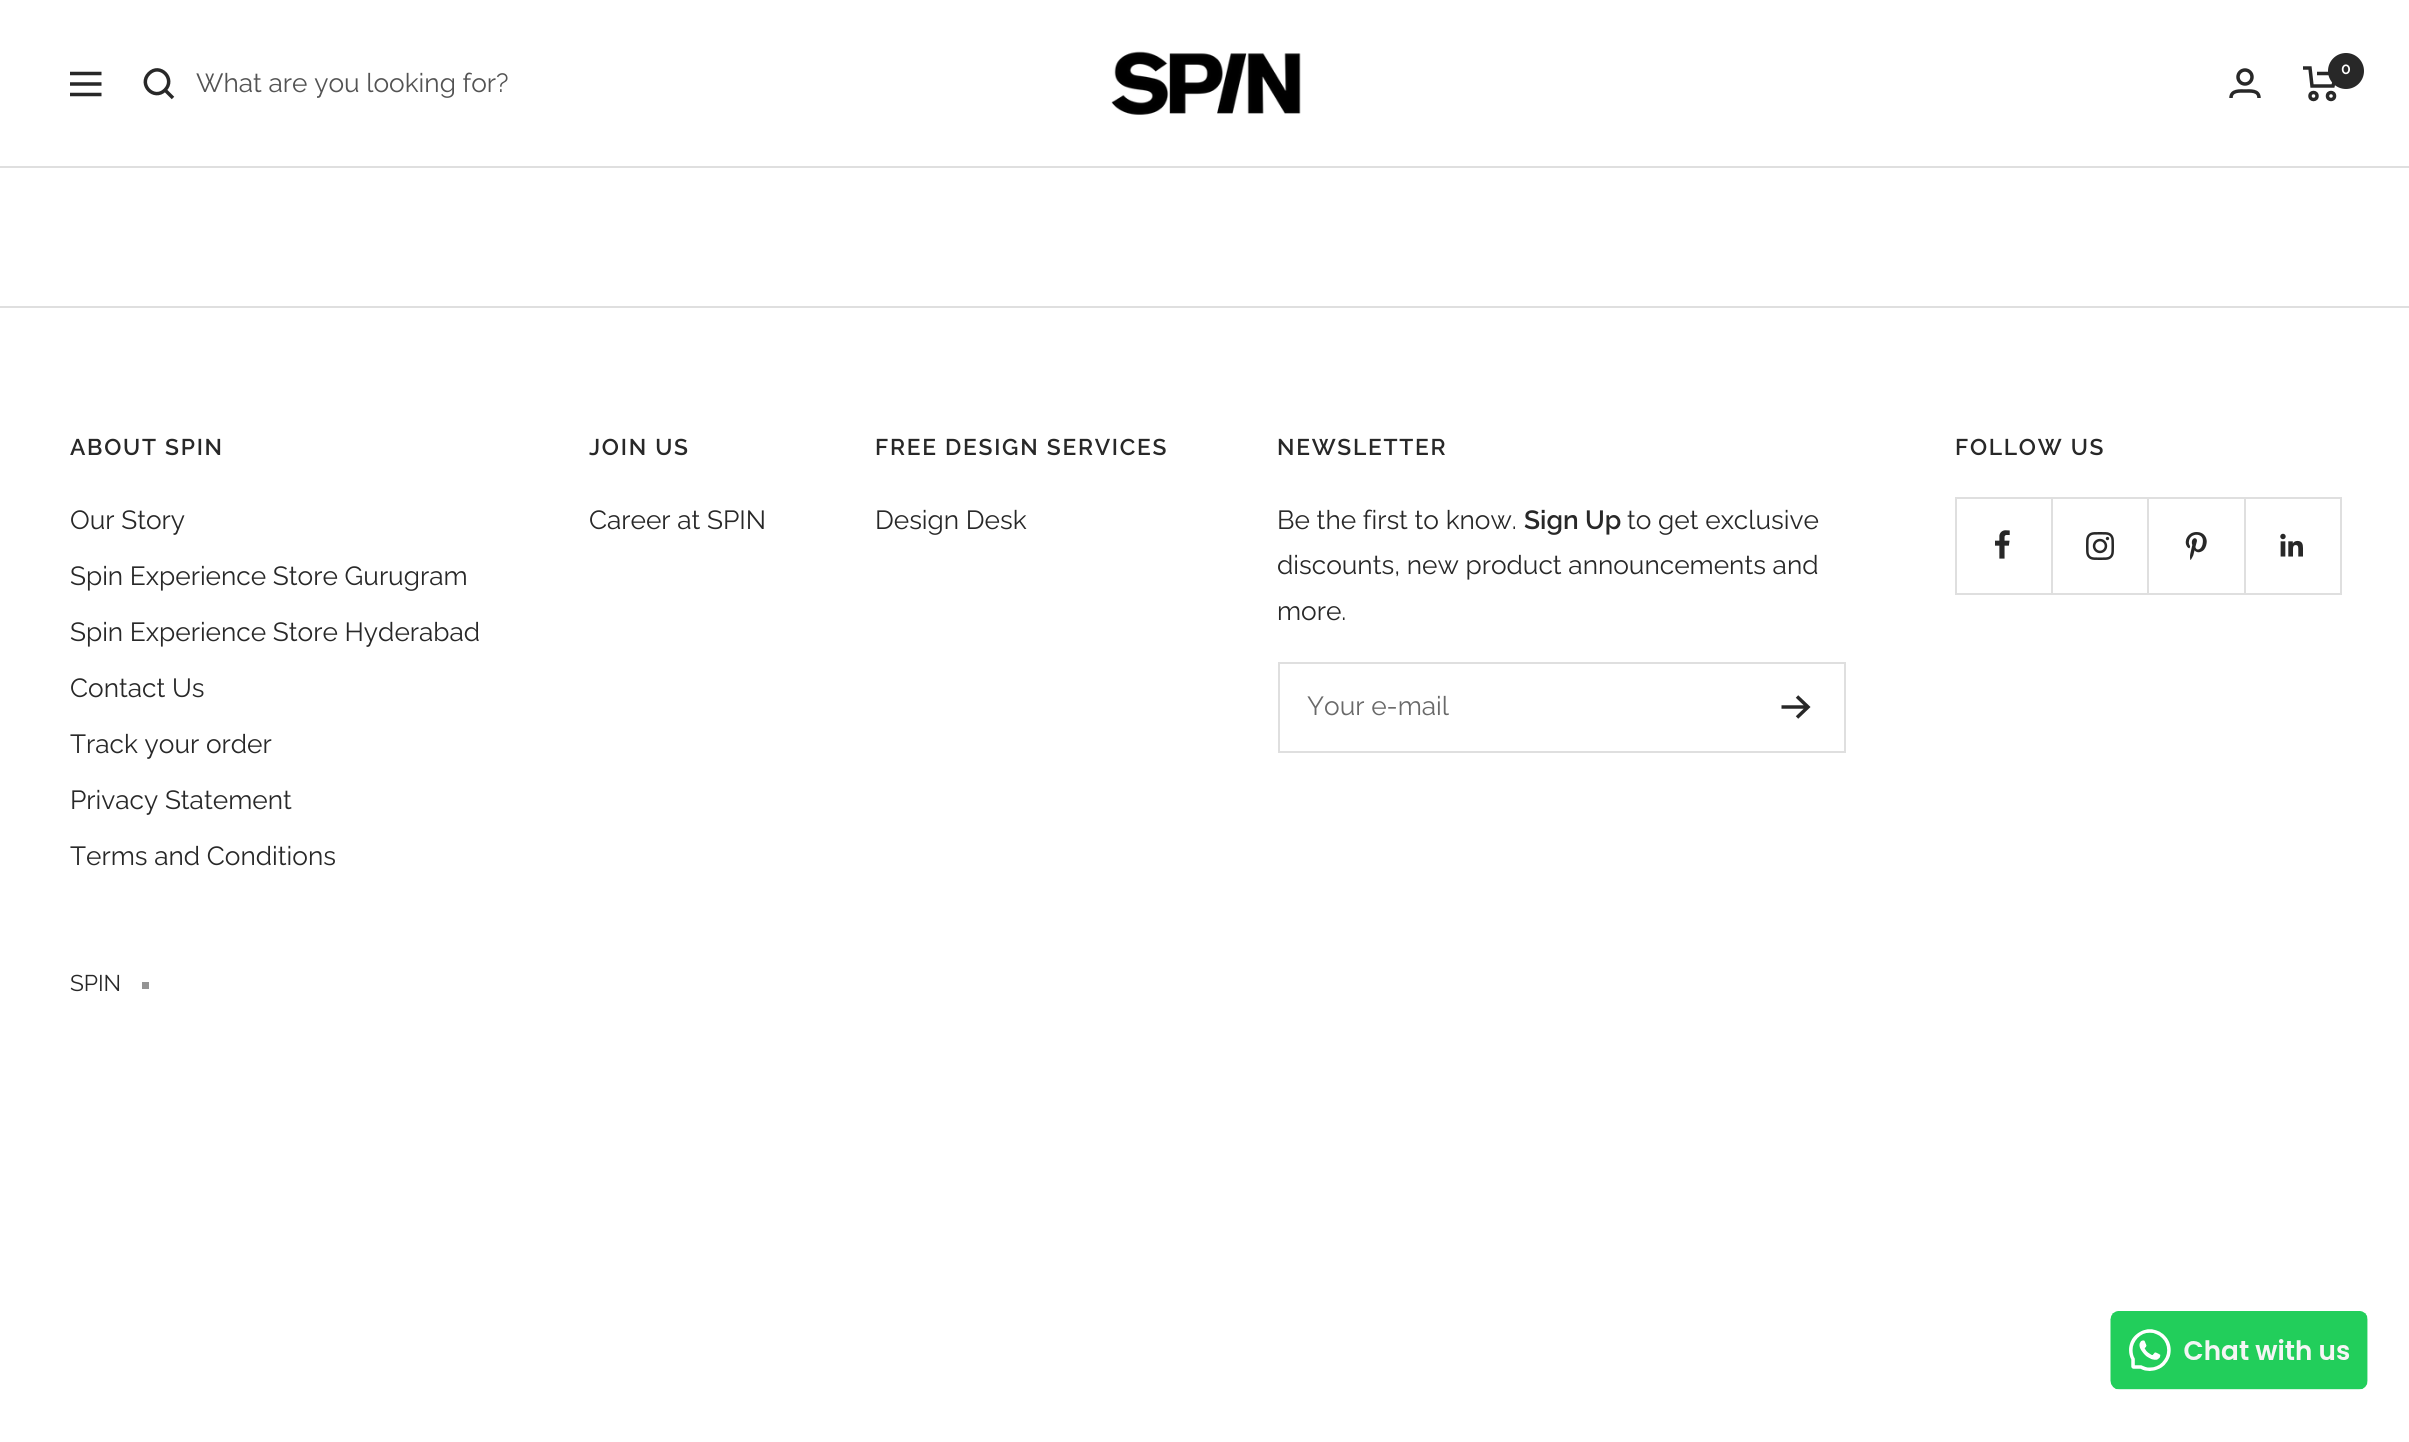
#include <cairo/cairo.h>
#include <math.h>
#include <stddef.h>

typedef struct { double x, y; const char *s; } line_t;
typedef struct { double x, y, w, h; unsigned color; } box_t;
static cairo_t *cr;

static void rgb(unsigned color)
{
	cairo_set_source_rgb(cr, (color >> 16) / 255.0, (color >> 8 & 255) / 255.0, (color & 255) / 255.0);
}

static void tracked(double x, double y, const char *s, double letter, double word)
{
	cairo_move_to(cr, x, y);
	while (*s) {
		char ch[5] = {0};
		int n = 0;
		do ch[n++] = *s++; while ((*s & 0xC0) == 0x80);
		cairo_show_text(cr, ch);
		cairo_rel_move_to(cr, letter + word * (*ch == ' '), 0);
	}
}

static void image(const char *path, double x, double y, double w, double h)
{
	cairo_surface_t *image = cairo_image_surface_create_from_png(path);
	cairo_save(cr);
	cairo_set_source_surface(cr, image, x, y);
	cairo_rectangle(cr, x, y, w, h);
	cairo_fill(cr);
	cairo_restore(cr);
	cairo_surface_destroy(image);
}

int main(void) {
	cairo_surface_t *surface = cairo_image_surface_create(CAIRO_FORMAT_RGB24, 2409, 1442);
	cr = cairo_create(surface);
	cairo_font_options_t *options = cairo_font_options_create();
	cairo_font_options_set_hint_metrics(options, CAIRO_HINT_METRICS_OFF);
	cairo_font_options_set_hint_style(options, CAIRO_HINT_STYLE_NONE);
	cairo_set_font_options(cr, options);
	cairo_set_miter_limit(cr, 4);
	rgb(0xffffff);
	cairo_paint(cr);
	rgb(0xdfdfdf);
	cairo_new_path(cr);
	cairo_move_to(cr, 0, 166);
	cairo_line_to(cr, 0, 168);
	cairo_line_to(cr, 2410, 168);
	cairo_line_to(cr, 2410, 2);
	cairo_line_to(cr, 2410, 166);
	cairo_close_path(cr);
	cairo_fill(cr);
	image("img/1.png", 1111, 51, 190, 64);
	cairo_arc(cr, 2245, 77, 7, 0, 2 * M_PI);
	rgb(0x282828);
	cairo_set_line_width(cr, 3.5);
	cairo_stroke(cr);
	cairo_new_path(cr);
	cairo_move_to(cr, 2231, 98);
	cairo_curve_to(cr, 2231, 90, 2240, 91, 2245, 91);
	cairo_curve_to(cr, 2250.5, 91, 2259, 90, 2259, 98);
	cairo_stroke(cr);
	cairo_new_path(cr);
	cairo_move_to(cr, 2303, 68);
	cairo_line_to(cr, 2310, 68);
	cairo_line_to(cr, 2312, 86);
	cairo_line_to(cr, 2333, 86);
	cairo_line_to(cr, 2336, 73.5);
	cairo_line_to(cr, 2317, 73.5);
	cairo_stroke(cr);
	cairo_arc(cr, 2313.5, 96, 3.5, 0, 2 * M_PI);
	cairo_stroke(cr);
	cairo_arc(cr, 2331, 96, 3.5, 0, 2 * M_PI);
	cairo_stroke(cr);
	cairo_arc(cr, 2346, 71, 18, 0, 2 * M_PI);
	cairo_fill(cr);
	cairo_new_path(cr);
	cairo_move_to(cr, 70, 73.5);
	cairo_line_to(cr, 101.5, 73.5);
	cairo_move_to(cr, 70, 94.5);
	cairo_line_to(cr, 101.5, 94.5);
	cairo_close_path(cr);
	cairo_move_to(cr, 70, 84);
	cairo_line_to(cr, 101.5, 84);
	cairo_close_path(cr);
	cairo_stroke(cr);
	cairo_new_path(cr);
	cairo_move_to(cr, 165, 90);
	cairo_curve_to(cr, 176, 79, 160, 62.5, 149, 73.5);
	cairo_curve_to(cr, 138, 84.5, 154, 101, 165, 90);
	cairo_close_path(cr);
	cairo_move_to(cr, 165, 90);
	cairo_line_to(cr, 173, 98);
	cairo_stroke(cr);
	rgb(0xdfdfdf);
	cairo_rectangle(cr, 0, 306, 2409, 2);
	cairo_fill(cr);
	cairo_rectangle(cr, 1279, 663, 566, 89);
	cairo_set_line_width(cr, 2);
	cairo_stroke(cr);
	cairo_new_path(cr);
	cairo_move_to(cr, 1781.5, 707);
	cairo_line_to(cr, 1808, 707);
	cairo_move_to(cr, 1797, 696.5);
	cairo_line_to(cr, 1808, 707);
	cairo_line_to(cr, 1797, 717.5);
	rgb(0x282828);
	cairo_set_line_width(cr, 3.5);
	cairo_stroke(cr);
	rgb(0xdfdfdf);
	cairo_new_path(cr);
	cairo_move_to(cr, 1957, 593);
	cairo_line_to(cr, 1957, 595);
	cairo_line_to(cr, 2053, 595);
	cairo_line_to(cr, 2053, 499);
	cairo_line_to(cr, 2051, 499);
	cairo_line_to(cr, 2051, 593);
	cairo_close_path(cr);
	cairo_fill(cr);
	{
		static const box_t items[] = {
			{1955, 593, 2, 2, 0xdfdfdf},
			{1955, 497, 98, 2, 0xdfdfdf},
			{1955, 497, 2, 96, 0xdfdfdf},
		};
		for (size_t i = 0; i < sizeof items / sizeof *items; i++) {
			rgb(items[i].color);
			cairo_rectangle(cr, items[i].x, items[i].y, items[i].w, items[i].h);
			cairo_fill(cr);
		}
	}
	image("img/2.png", 1995, 530, 15, 29);
	cairo_new_path(cr);
	cairo_move_to(cr, 2053, 593);
	cairo_line_to(cr, 2053, 595);
	cairo_line_to(cr, 2149, 595);
	cairo_line_to(cr, 2149, 499);
	cairo_line_to(cr, 2147, 499);
	cairo_line_to(cr, 2147, 593);
	cairo_close_path(cr);
	cairo_fill(cr);
	cairo_rectangle(cr, 2051, 497, 193, 2);
	cairo_fill(cr);
	image("img/3.png", 2086, 532, 28, 28);
	cairo_new_path(cr);
	cairo_move_to(cr, 2245, 593);
	cairo_line_to(cr, 2245, 595);
	cairo_line_to(cr, 2342, 595);
	cairo_line_to(cr, 2342, 499);
	cairo_line_to(cr, 2340, 499);
	cairo_line_to(cr, 2340, 593);
	cairo_close_path(cr);
	cairo_fill(cr);
	cairo_rectangle(cr, 2244, 497, 98, 2);
	cairo_fill(cr);
	cairo_rectangle(cr, 2245, 497, 1, 96);
	cairo_fill(cr);
	image("img/4.png", 2280, 533, 23, 24);
	cairo_new_path(cr);
	cairo_move_to(cr, 2149, 593);
	cairo_line_to(cr, 2149, 595);
	cairo_line_to(cr, 2245, 595);
	cairo_line_to(cr, 2245, 499);
	cairo_line_to(cr, 2244, 499);
	cairo_line_to(cr, 2244, 593);
	cairo_close_path(cr);
	cairo_fill(cr);
	image("img/5.png", 2185, 532, 22, 28);
	rgb(0x949494);
	cairo_rectangle(cr, 142, 982, 7, 7);
	cairo_fill(cr);
	image("img/6.png", 2110, 1311, 258, 79);
	cairo_select_font_face(cr, "Raleway SemiBold", CAIRO_FONT_SLANT_NORMAL, CAIRO_FONT_WEIGHT_NORMAL);
	cairo_set_font_size(cr, 16);
	rgb(0xffffff);
	cairo_move_to(cr, 2341, 74);
	cairo_show_text(cr, "0");
	cairo_select_font_face(cr, "Raleway", CAIRO_FONT_SLANT_NORMAL, CAIRO_FONT_WEIGHT_NORMAL);
	cairo_set_font_size(cr, 26.25);
	rgb(0x535353);
	cairo_move_to(cr, 196, 92);
	cairo_show_text(cr, "What are you looking for?");
	cairo_select_font_face(cr, "Raleway SemiBold", CAIRO_FONT_SLANT_NORMAL, CAIRO_FONT_WEIGHT_NORMAL);
	cairo_set_font_size(cr, 22.75);
	rgb(0x282828);
	tracked(70, 455, "ABOUT SPIN", 1.75, 0);
	cairo_select_font_face(cr, "Raleway", CAIRO_FONT_SLANT_NORMAL, CAIRO_FONT_WEIGHT_NORMAL);
	cairo_set_font_size(cr, 26.25);
	{
		static const line_t items[] = {
			{70, 529, "Our Story"},
			{70, 585, "Spin Experience Store Gurugram"},
			{70, 641, "Spin Experience Store Hyderabad"},
			{70, 697, "Contact Us"},
			{70, 753, "Track your order"},
			{70, 809, "Privacy Statement"},
			{70, 865, "Terms and Conditions"},
		};
		for (size_t i = 0; i < sizeof items / sizeof *items; i++) {
			cairo_move_to(cr, items[i].x, items[i].y);
			cairo_show_text(cr, items[i].s);
		}
	}
	cairo_select_font_face(cr, "Raleway SemiBold", CAIRO_FONT_SLANT_NORMAL, CAIRO_FONT_WEIGHT_NORMAL);
	cairo_set_font_size(cr, 22.75);
	tracked(589, 455, "JOIN US", 1.75, 0);
	cairo_select_font_face(cr, "Raleway", CAIRO_FONT_SLANT_NORMAL, CAIRO_FONT_WEIGHT_NORMAL);
	cairo_set_font_size(cr, 26.25);
	cairo_move_to(cr, 589, 529);
	cairo_show_text(cr, "Career at SPIN");
	cairo_select_font_face(cr, "Raleway SemiBold", CAIRO_FONT_SLANT_NORMAL, CAIRO_FONT_WEIGHT_NORMAL);
	cairo_set_font_size(cr, 22.75);
	tracked(875, 455, "FREE DESIGN SERVICES", 1.75, 0);
	cairo_select_font_face(cr, "Raleway", CAIRO_FONT_SLANT_NORMAL, CAIRO_FONT_WEIGHT_NORMAL);
	cairo_set_font_size(cr, 26.25);
	cairo_move_to(cr, 875, 529);
	cairo_show_text(cr, "Design Desk");
	cairo_select_font_face(cr, "Raleway SemiBold", CAIRO_FONT_SLANT_NORMAL, CAIRO_FONT_WEIGHT_NORMAL);
	cairo_set_font_size(cr, 22.75);
	tracked(1277, 455, "NEWSLETTER", 1.75, 0);
	cairo_select_font_face(cr, "Raleway", CAIRO_FONT_SLANT_NORMAL, CAIRO_FONT_WEIGHT_NORMAL);
	cairo_set_font_size(cr, 26.25);
	cairo_move_to(cr, 1277, 529);
	cairo_show_text(cr, "Be the first to know.");
	cairo_select_font_face(cr, "Raleway SemiBold", CAIRO_FONT_SLANT_NORMAL, CAIRO_FONT_WEIGHT_NORMAL);
	cairo_move_to(cr, 1524, 529);
	cairo_show_text(cr, "Sign Up");
	cairo_select_font_face(cr, "Raleway", CAIRO_FONT_SLANT_NORMAL, CAIRO_FONT_WEIGHT_NORMAL);
	{
		static const line_t items[] = {
			{1627, 529, "to get exclusive"},
			{1277, 574, "discounts, new product announcements and"},
			{1277, 620, "more."},
		};
		for (size_t i = 0; i < sizeof items / sizeof *items; i++) {
			cairo_move_to(cr, items[i].x, items[i].y);
			cairo_show_text(cr, items[i].s);
		}
	}
	rgb(0x696969);
	cairo_move_to(cr, 1307, 715);
	cairo_show_text(cr, "Your e-mail");
	cairo_select_font_face(cr, "Raleway SemiBold", CAIRO_FONT_SLANT_NORMAL, CAIRO_FONT_WEIGHT_NORMAL);
	cairo_set_font_size(cr, 22.75);
	rgb(0x282828);
	tracked(1955, 455, "FOLLOW US", 1.75, 0);
	cairo_select_font_face(cr, "Raleway", CAIRO_FONT_SLANT_NORMAL, CAIRO_FONT_WEIGHT_NORMAL);
	cairo_move_to(cr, 70, 991);
	cairo_show_text(cr, "SPIN");
	cairo_surface_write_to_png(surface, "page.png");
	cairo_font_options_destroy(options);
	cairo_destroy(cr);
	cairo_surface_destroy(surface);
	return 0;
}
